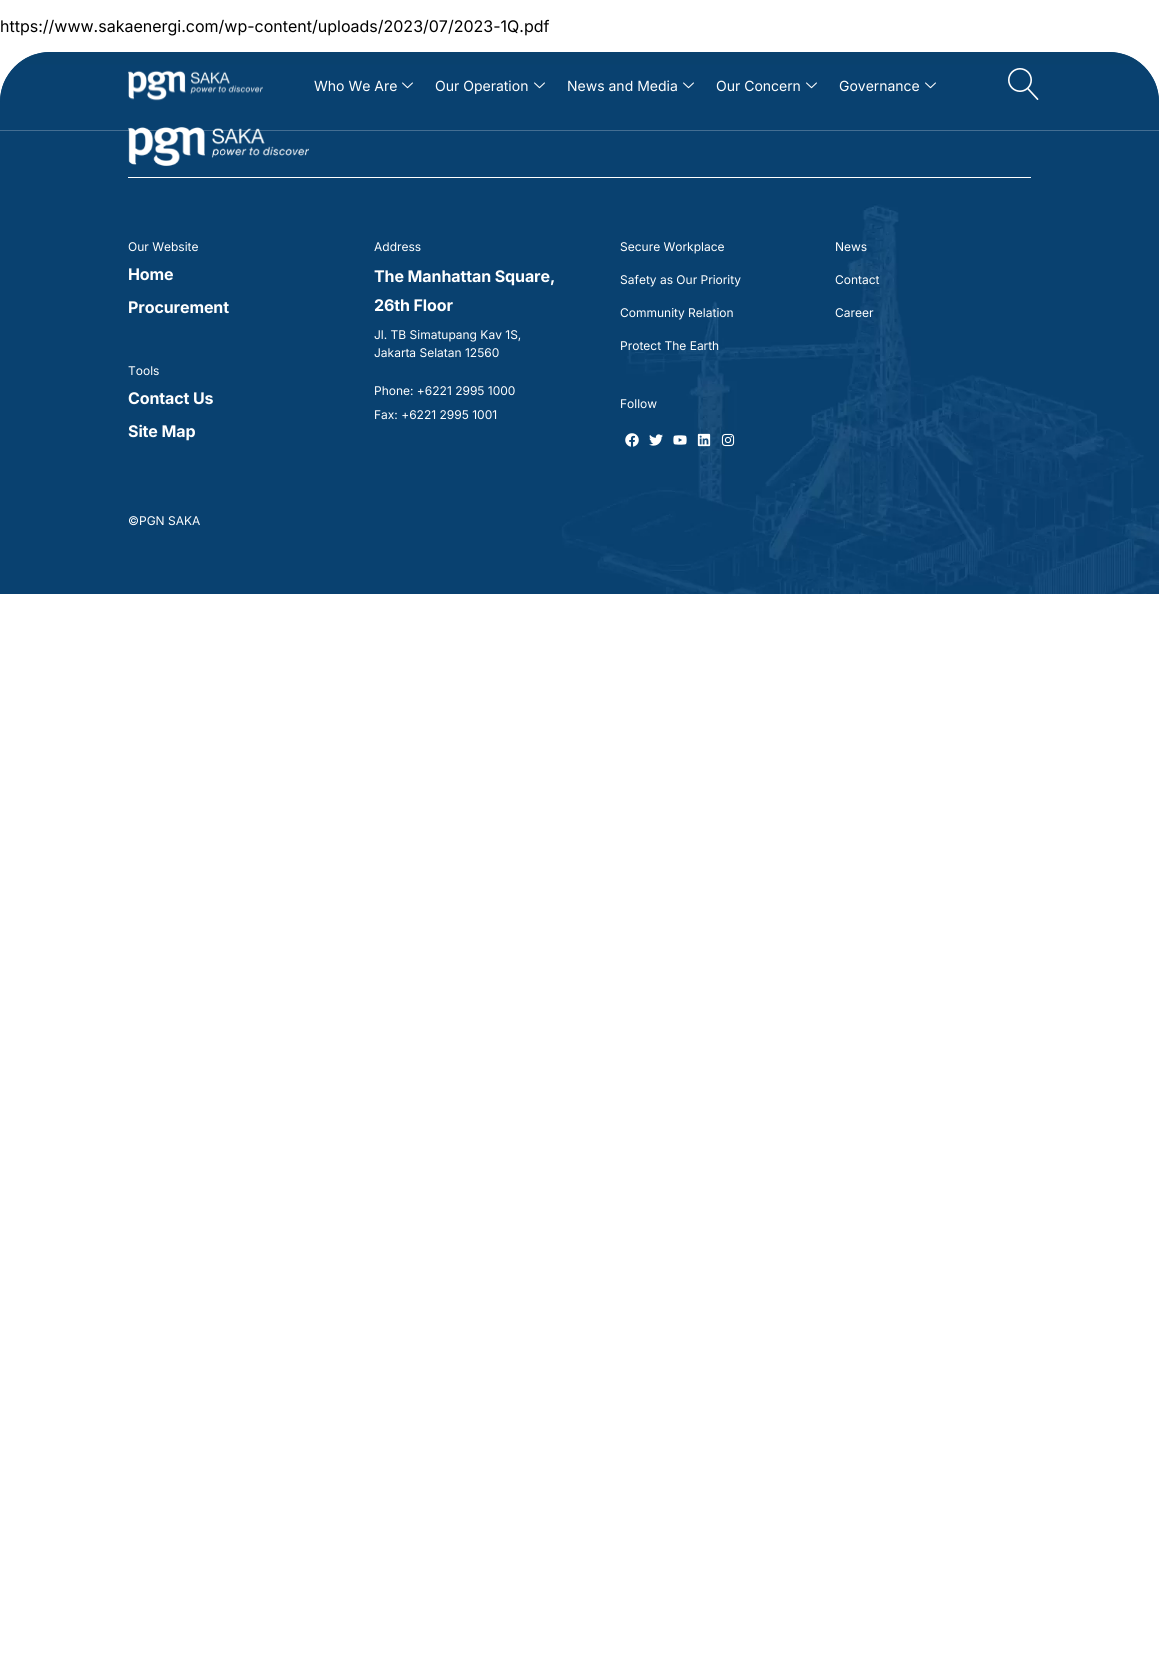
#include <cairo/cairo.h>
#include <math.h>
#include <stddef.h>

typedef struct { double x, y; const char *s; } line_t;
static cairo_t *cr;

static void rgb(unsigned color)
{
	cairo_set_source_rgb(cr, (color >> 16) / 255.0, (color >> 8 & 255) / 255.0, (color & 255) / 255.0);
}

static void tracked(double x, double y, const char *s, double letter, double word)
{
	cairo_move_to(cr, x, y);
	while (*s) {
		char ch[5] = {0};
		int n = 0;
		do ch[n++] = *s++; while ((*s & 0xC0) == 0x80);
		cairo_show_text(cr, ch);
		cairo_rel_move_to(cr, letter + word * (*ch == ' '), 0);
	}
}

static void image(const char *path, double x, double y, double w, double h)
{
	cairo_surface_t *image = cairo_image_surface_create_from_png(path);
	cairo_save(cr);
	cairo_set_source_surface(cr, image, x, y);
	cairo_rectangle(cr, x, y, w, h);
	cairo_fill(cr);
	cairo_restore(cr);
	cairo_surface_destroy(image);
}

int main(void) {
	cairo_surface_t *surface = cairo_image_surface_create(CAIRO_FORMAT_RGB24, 1159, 1656);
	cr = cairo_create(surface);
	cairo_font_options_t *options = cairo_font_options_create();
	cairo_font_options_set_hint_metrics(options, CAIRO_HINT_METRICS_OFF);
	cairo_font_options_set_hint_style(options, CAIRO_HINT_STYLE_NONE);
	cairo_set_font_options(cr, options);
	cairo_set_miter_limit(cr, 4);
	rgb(0xffffff);
	cairo_paint(cr);
	rgb(0x0a4171);
	cairo_new_path(cr);
	cairo_move_to(cr, 50, 52);
	cairo_line_to(cr, 1109, 52);
	cairo_curve_to(cr, 1136.5, 52, 1159, 74.5, 1159, 102);
	cairo_line_to(cr, 1159, 594);
	cairo_line_to(cr, 0, 594);
	cairo_line_to(cr, 0, 102);
	cairo_curve_to(cr, 0, 74.5, 22.5, 52, 50, 52);
	cairo_close_path(cr);
	cairo_fill(cr);
	image("img/4.png", 0, 52, 1159, 542);
	image("img/5.png", 128, 127, 181, 39);
	cairo_set_source_rgba(cr, 1, 1, 1, 0.24);
	cairo_rectangle(cr, 0, 130, 1159, 1);
	cairo_fill(cr);
	image("img/1.png", 128, 70, 135, 31);
	image("img/2.png", 402, 82, 11, 7);
	image("img/2.png", 534, 82, 11, 7);
	image("img/2.png", 683, 82, 11, 7);
	image("img/2.png", 806, 82, 11, 7);
	image("img/2.png", 925, 82, 11, 7);
	image("img/3.png", 1008, 68, 31, 32);
	rgb(0xffffff);
	cairo_rectangle(cr, 128, 177, 903, 1);
	cairo_fill(cr);
	image("img/6.png", 625, 433, 14, 14);
	image("img/7.png", 649, 434, 14, 12);
	image("img/8.png", 673, 435, 14, 10);
	image("img/9.png", 697, 433, 14, 14);
	image("img/10.png", 721, 433, 14, 14);
	cairo_select_font_face(cr, "Inter", CAIRO_FONT_SLANT_NORMAL, CAIRO_FONT_WEIGHT_NORMAL);
	cairo_set_font_size(cr, 16);
	rgb(0x000000);
	cairo_move_to(cr, 0, 32);
	cairo_show_text(cr, "https://www.sakaenergi.com/wp-content/uploads/2023/07/2023-1Q.pdf");
	cairo_set_font_size(cr, 14);
	rgb(0xffffff);
	{
		static const line_t items[] = {
			{314, 91, "Who We Are"},
			{435, 91, "Our Operation"},
			{567, 91, "News and Media"},
			{716, 91, "Our Concern"},
			{839, 91, "Governance"},
		};
		for (size_t i = 0; i < sizeof items / sizeof *items; i++) {
			cairo_move_to(cr, items[i].x, items[i].y);
			cairo_show_text(cr, items[i].s);
		}
	}
	cairo_set_font_size(cr, 12);
	cairo_move_to(cr, 128, 251);
	cairo_show_text(cr, "Our Website");
	cairo_select_font_face(cr, "Inter", CAIRO_FONT_SLANT_NORMAL, CAIRO_FONT_WEIGHT_BOLD);
	cairo_set_font_size(cr, 16);
	tracked(128, 280, "Home", -0.1, 0);
	tracked(128, 313, "Procurement", -0.1, 0);
	cairo_select_font_face(cr, "Inter", CAIRO_FONT_SLANT_NORMAL, CAIRO_FONT_WEIGHT_NORMAL);
	cairo_set_font_size(cr, 12);
	cairo_move_to(cr, 128, 375);
	cairo_show_text(cr, "Tools");
	cairo_select_font_face(cr, "Inter", CAIRO_FONT_SLANT_NORMAL, CAIRO_FONT_WEIGHT_BOLD);
	cairo_set_font_size(cr, 16);
	tracked(128, 404, "Contact Us", -0.1, 0);
	tracked(128, 437, "Site Map", -0.1, 0);
	cairo_select_font_face(cr, "Inter", CAIRO_FONT_SLANT_NORMAL, CAIRO_FONT_WEIGHT_NORMAL);
	cairo_set_font_size(cr, 12);
	cairo_move_to(cr, 374, 251);
	cairo_show_text(cr, "Address");
	cairo_select_font_face(cr, "Inter", CAIRO_FONT_SLANT_NORMAL, CAIRO_FONT_WEIGHT_BOLD);
	cairo_set_font_size(cr, 16);
	tracked(374, 282, "The Manhattan Square,", -0.1, 0);
	tracked(374, 311, "26th Floor", -0.1, 0);
	cairo_select_font_face(cr, "Inter", CAIRO_FONT_SLANT_NORMAL, CAIRO_FONT_WEIGHT_NORMAL);
	cairo_set_font_size(cr, 12);
	{
		static const line_t items[] = {
			{374, 339, "Jl. TB Simatupang Kav 1S,"},
			{374, 357, "Jakarta Selatan 12560"},
			{374, 395, "Phone: +6221 2995 1000"},
			{374, 419, "Fax: +6221 2995 1001"},
			{620, 251, "Secure Workplace"},
			{620, 284, "Safety as Our Priority"},
			{620, 317, "Community Relation"},
			{620, 350, "Protect The Earth"},
			{620, 408, "Follow"},
			{835, 251, "News"},
			{835, 284, "Contact"},
			{835, 317, "Career"},
			{128, 525, "©PGN SAKA"},
		};
		for (size_t i = 0; i < sizeof items / sizeof *items; i++) {
			cairo_move_to(cr, items[i].x, items[i].y);
			cairo_show_text(cr, items[i].s);
		}
	}
	cairo_surface_write_to_png(surface, "page.png");
	cairo_font_options_destroy(options);
	cairo_destroy(cr);
	cairo_surface_destroy(surface);
	return 0;
}
